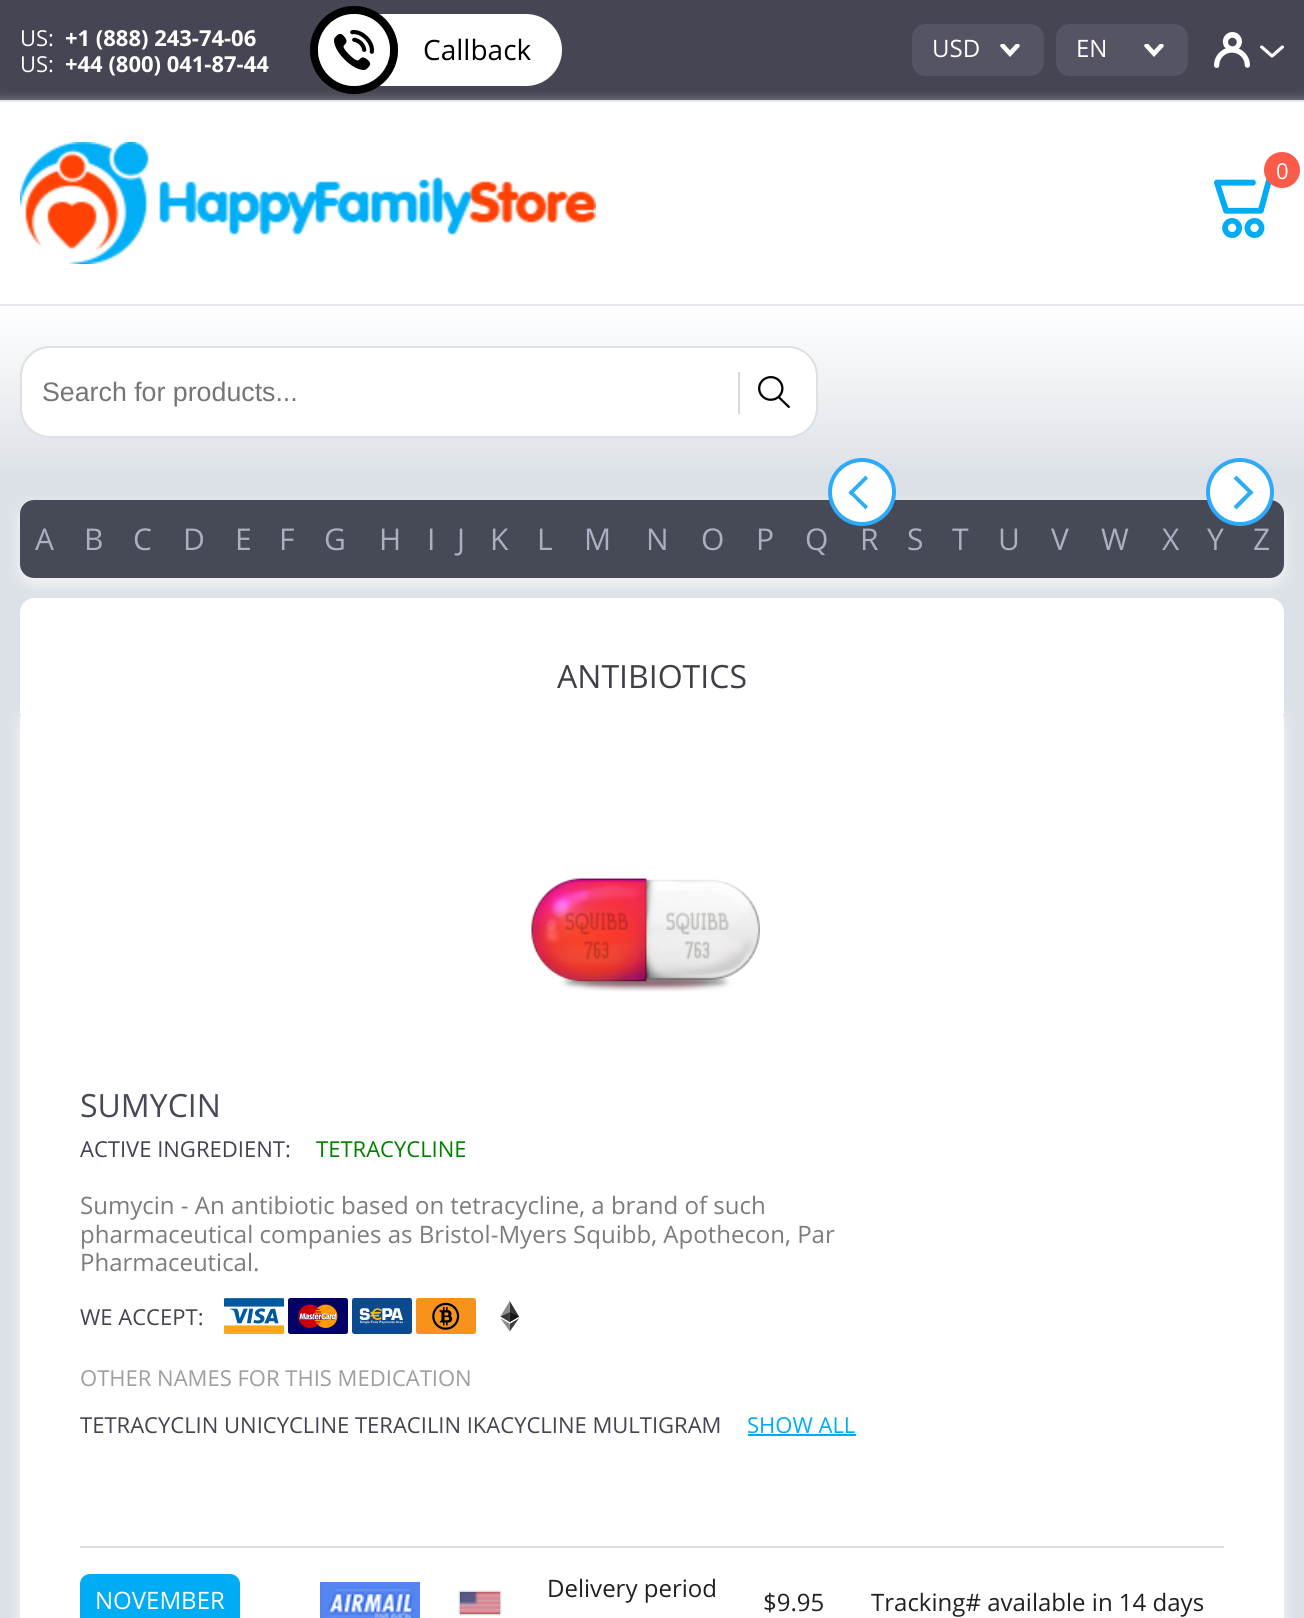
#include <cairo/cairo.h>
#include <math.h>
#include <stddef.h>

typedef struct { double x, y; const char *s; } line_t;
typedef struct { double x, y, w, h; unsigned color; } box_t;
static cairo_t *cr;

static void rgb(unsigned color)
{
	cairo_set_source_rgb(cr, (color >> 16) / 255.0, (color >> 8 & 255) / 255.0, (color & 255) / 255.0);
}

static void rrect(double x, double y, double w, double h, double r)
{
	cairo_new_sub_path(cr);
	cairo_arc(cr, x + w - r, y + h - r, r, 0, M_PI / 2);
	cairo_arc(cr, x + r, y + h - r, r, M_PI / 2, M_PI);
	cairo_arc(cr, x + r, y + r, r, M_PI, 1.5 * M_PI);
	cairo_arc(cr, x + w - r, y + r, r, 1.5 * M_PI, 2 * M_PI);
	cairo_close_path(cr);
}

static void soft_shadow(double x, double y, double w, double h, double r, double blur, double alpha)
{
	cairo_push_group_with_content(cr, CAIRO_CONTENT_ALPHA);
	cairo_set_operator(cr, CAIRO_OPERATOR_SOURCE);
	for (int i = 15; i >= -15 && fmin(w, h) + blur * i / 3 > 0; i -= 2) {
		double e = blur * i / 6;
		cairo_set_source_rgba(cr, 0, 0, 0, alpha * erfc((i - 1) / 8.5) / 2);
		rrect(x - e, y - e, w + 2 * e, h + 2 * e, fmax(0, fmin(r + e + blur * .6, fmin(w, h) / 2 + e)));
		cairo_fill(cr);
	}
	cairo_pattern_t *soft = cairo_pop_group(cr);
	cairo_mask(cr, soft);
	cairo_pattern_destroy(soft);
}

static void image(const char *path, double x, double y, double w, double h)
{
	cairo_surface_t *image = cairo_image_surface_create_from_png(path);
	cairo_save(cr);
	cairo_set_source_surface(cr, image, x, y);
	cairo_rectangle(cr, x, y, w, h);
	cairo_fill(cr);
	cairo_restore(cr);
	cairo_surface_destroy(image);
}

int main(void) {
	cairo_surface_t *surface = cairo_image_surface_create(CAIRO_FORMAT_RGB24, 1304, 1618);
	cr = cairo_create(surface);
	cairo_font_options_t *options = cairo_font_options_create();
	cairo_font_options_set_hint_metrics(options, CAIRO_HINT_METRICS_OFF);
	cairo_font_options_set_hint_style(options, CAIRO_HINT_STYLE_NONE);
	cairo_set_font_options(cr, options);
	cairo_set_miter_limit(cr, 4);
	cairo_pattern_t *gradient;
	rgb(0xdce1e7);
	cairo_paint(cr);
	rgb(0x464553);
	cairo_rectangle(cr, 0, 0, 1304, 100);
	cairo_fill(cr);
	rgb(0xf5f5f5);
	soft_shadow(0, 106, 1304, 206, 0, 7, 1);
	rgb(0xffffff);
	rrect(312, 14, 250, 72, 36);
	cairo_fill(cr);
	cairo_arc(cr, 354, 50, 40, 0, 2 * M_PI);
	rgb(0x000000);
	cairo_set_line_width(cr, 8);
	cairo_stroke(cr);
	cairo_arc(cr, 354, 50, 34, 0, 2 * M_PI);
	cairo_set_source_rgba(cr, 0, 0, 0, 0.5);
	cairo_set_line_width(cr, 20);
	cairo_stroke(cr);
	rgb(0xffffff);
	cairo_arc(cr, 354, 50, 36, 0, 2 * M_PI);
	cairo_fill(cr);
	image("img/1.png", 334, 30, 40, 40);
	rgb(0x555464);
	rrect(912, 24, 132, 52, 14);
	cairo_fill(cr);
	image("img/2.png", 1000, 44, 20, 13);
	rrect(1056, 24, 132, 52, 14);
	cairo_fill(cr);
	image("img/2.png", 1144, 44, 20, 13);
	image("img/3.png", 1214, 32, 36, 36);
	image("img/4.png", 1260, 45, 24, 13);
	{
		static const box_t items[] = {
			{0, 102, 1304, 202, 0xffffff},
			{0, 100, 1304, 2, 0xe4e8ed},
			{0, 304, 1304, 2, 0xe4e8ed},
		};
		for (size_t i = 0; i < sizeof items / sizeof *items; i++) {
			rgb(items[i].color);
			cairo_rectangle(cr, items[i].x, items[i].y, items[i].w, items[i].h);
			cairo_fill(cr);
		}
	}
	image("img/5.png", 20, 142, 576, 122);
	image("img/6.png", 1214, 178, 57, 60);
	rgb(0xfc5b4a);
	cairo_arc(cr, 1282, 170, 18, 0, 2 * M_PI);
	cairo_fill(cr);
	gradient = cairo_pattern_create_linear(652, 306, 652, 480);
	cairo_pattern_add_color_stop_rgba(gradient, 0, 1, 1, 1, 1);
	cairo_pattern_add_color_stop_rgba(gradient, 1, 0.863, 0.882, 0.906, 1);
	cairo_set_source(cr, gradient);
	cairo_pattern_destroy(gradient);
	cairo_rectangle(cr, 0, 306, 1304, 162);
	cairo_fill(cr);
	rgb(0xffffff);
	rrect(21, 347, 796, 90, 29);
	cairo_fill_preserve(cr);
	rgb(0xdfdfe1);
	cairo_set_line_width(cr, 2);
	cairo_stroke(cr);
	rgb(0xdbd8d8);
	cairo_rectangle(cr, 738, 372, 2, 42);
	cairo_fill(cr);
	image("img/7.png", 758, 376, 32, 32);
	rgb(0xf5f5f5);
	soft_shadow(20, 506, 1264, 78, 14, 7, 1);
	rgb(0x464956);
	rrect(20, 500, 1264, 78, 14);
	cairo_fill(cr);
	rgb(0xffffff);
	cairo_arc(cr, 862, 492, 32, 0, 2 * M_PI);
	cairo_fill_preserve(cr);
	rgb(0x2eaafd);
	cairo_set_line_width(cr, 4);
	cairo_stroke(cr);
	rgb(0x2daef2);
	cairo_new_path(cr);
	cairo_move_to(cr, 848.5, 492.5);
	cairo_line_to(cr, 865.5, 475.5);
	cairo_line_to(cr, 868, 478.5);
	cairo_line_to(cr, 851, 495.5);
	cairo_close_path(cr);
	cairo_fill(cr);
	cairo_new_path(cr);
	cairo_move_to(cr, 848.5, 492.5);
	cairo_line_to(cr, 851, 490);
	cairo_line_to(cr, 868, 506.5);
	cairo_line_to(cr, 865.5, 509.5);
	cairo_close_path(cr);
	cairo_fill(cr);
	rgb(0xffffff);
	cairo_arc(cr, 1240, 492, 32, 0, 2 * M_PI);
	cairo_fill_preserve(cr);
	rgb(0x2eaafd);
	cairo_stroke(cr);
	rgb(0x2daef2);
	cairo_new_path(cr);
	cairo_move_to(cr, 1236.5, 475.5);
	cairo_line_to(cr, 1253.5, 492.5);
	cairo_line_to(cr, 1250.5, 495);
	cairo_line_to(cr, 1233.5, 478.5);
	cairo_close_path(cr);
	cairo_fill(cr);
	cairo_new_path(cr);
	cairo_move_to(cr, 1250.5, 489.5);
	cairo_line_to(cr, 1253.5, 492.5);
	cairo_line_to(cr, 1236.5, 509.5);
	cairo_line_to(cr, 1233.5, 506.5);
	cairo_close_path(cr);
	cairo_fill(cr);
	rgb(0xf5f5f5);
	soft_shadow(20, 712, 1264, 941, 14, 7, 1);
	rgb(0xffffff);
	cairo_new_path(cr);
	cairo_move_to(cr, 34, 598);
	cairo_line_to(cr, 1270, 598);
	cairo_curve_to(cr, 1277.5, 598, 1284, 604.5, 1284, 612);
	cairo_line_to(cr, 1284, 706);
	cairo_line_to(cr, 20, 706);
	cairo_line_to(cr, 20, 612);
	cairo_curve_to(cr, 20, 604.5, 26.5, 598, 34, 598);
	cairo_close_path(cr);
	cairo_fill(cr);
	rrect(20, 706, 1264, 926, 14);
	cairo_fill(cr);
	cairo_rectangle(cr, 20, 706, 1264, 8);
	cairo_fill(cr);
	image("img/8.png", 531, 878, 229, 114);
	image("img/9.png", 224, 1298, 60, 36);
	image("img/10.png", 288, 1298, 60, 36);
	image("img/11.png", 352, 1298, 60, 36);
	image("img/12.png", 416, 1298, 60, 36);
	image("img/13.png", 500, 1301, 19, 31);
	rgb(0x00acf3);
	cairo_rectangle(cr, 748, 1434, 108, 2);
	cairo_fill(cr);
	rgb(0xdcddd9);
	cairo_rectangle(cr, 80, 1546, 1144, 2);
	cairo_fill(cr);
	rgb(0x00acf3);
	cairo_new_path(cr);
	cairo_move_to(cr, 90, 1574);
	cairo_line_to(cr, 230, 1574);
	cairo_curve_to(cr, 235.5, 1574, 240, 1578.5, 240, 1584);
	cairo_line_to(cr, 240, 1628);
	cairo_line_to(cr, 80, 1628);
	cairo_line_to(cr, 80, 1584);
	cairo_curve_to(cr, 80, 1578.5, 84.5, 1574, 90, 1574);
	cairo_close_path(cr);
	cairo_fill(cr);
	image("img/14.png", 320, 1582, 100, 36);
	rgb(0x888888);
	soft_shadow(460, 1592, 40, 22, 0, 1, 1);
	image("img/15.png", 460, 1592, 40, 22);
	cairo_select_font_face(cr, "Open Sans", CAIRO_FONT_SLANT_NORMAL, CAIRO_FONT_WEIGHT_NORMAL);
	cairo_set_font_size(cr, 22);
	rgb(0xffffff);
	cairo_move_to(cr, 20, 46);
	cairo_show_text(cr, "US:");
	cairo_select_font_face(cr, "Open Sans", CAIRO_FONT_SLANT_NORMAL, CAIRO_FONT_WEIGHT_BOLD);
	cairo_move_to(cr, 65, 46);
	cairo_show_text(cr, "+1 (888) 243-74-06");
	cairo_select_font_face(cr, "Open Sans", CAIRO_FONT_SLANT_NORMAL, CAIRO_FONT_WEIGHT_NORMAL);
	cairo_move_to(cr, 20, 72);
	cairo_show_text(cr, "US:");
	cairo_select_font_face(cr, "Open Sans", CAIRO_FONT_SLANT_NORMAL, CAIRO_FONT_WEIGHT_BOLD);
	cairo_move_to(cr, 65, 72);
	cairo_show_text(cr, "+44 (800) 041-87-44");
	cairo_select_font_face(cr, "Open Sans", CAIRO_FONT_SLANT_NORMAL, CAIRO_FONT_WEIGHT_NORMAL);
	cairo_set_font_size(cr, 28);
	rgb(0x000000);
	cairo_move_to(cr, 423, 60);
	cairo_show_text(cr, "Callback");
	cairo_set_font_size(cr, 24);
	rgb(0xffffff);
	cairo_move_to(cr, 932, 57);
	cairo_show_text(cr, "USD");
	cairo_move_to(cr, 1076, 57);
	cairo_show_text(cr, "EN");
	cairo_set_font_size(cr, 22);
	cairo_move_to(cr, 1276, 179);
	cairo_show_text(cr, "0");
	cairo_select_font_face(cr, "Liberation Sans", CAIRO_FONT_SLANT_NORMAL, CAIRO_FONT_WEIGHT_NORMAL);
	cairo_set_font_size(cr, 26.75);
	rgb(0x757575);
	cairo_move_to(cr, 42, 401);
	cairo_show_text(cr, "Search for products...");
	cairo_select_font_face(cr, "Open Sans", CAIRO_FONT_SLANT_NORMAL, CAIRO_FONT_WEIGHT_NORMAL);
	cairo_set_font_size(cr, 30);
	rgb(0xaaafc2);
	{
		static const line_t items[] = {
			{35, 550, "A"},
			{84, 550, "B"},
			{133, 550, "C"},
			{183, 550, "D"},
			{235, 550, "E"},
			{279, 550, "F"},
			{324, 550, "G"},
			{379, 550, "H"},
			{427, 550, "I"},
			{457, 550, "J"},
			{490, 550, "K"},
			{537, 550, "L"},
			{584, 550, "M"},
			{646, 550, "N"},
			{701, 550, "O"},
			{756, 550, "P"},
			{805, 550, "Q"},
			{860, 550, "R"},
			{907, 550, "S"},
			{952, 550, "T"},
			{998, 550, "U"},
			{1051, 550, "V"},
			{1101, 550, "W"},
			{1162, 550, "X"},
			{1207, 550, "Y"},
			{1253, 550, "Z"},
		};
		for (size_t i = 0; i < sizeof items / sizeof *items; i++) {
			cairo_move_to(cr, items[i].x, items[i].y);
			cairo_show_text(cr, items[i].s);
		}
	}
	cairo_set_font_size(cr, 32);
	rgb(0x403f47);
	cairo_move_to(cr, 557, 688);
	cairo_show_text(cr, "ANTIBIOTICS");
	rgb(0x464956);
	cairo_move_to(cr, 80, 1117);
	cairo_show_text(cr, "SUMYCIN");
	cairo_set_font_size(cr, 22);
	rgb(0x444351);
	cairo_move_to(cr, 80, 1157);
	cairo_show_text(cr, "ACTIVE INGREDIENT:");
	rgb(0x008000);
	cairo_move_to(cr, 316, 1157);
	cairo_show_text(cr, "TETRACYCLINE");
	cairo_set_font_size(cr, 24);
	rgb(0x7c7c7c);
	{
		static const line_t items[] = {
			{80, 1214, "Sumycin - An antibiotic based on tetracycline, a brand of such"},
			{80, 1243, "pharmaceutical companies as Bristol-Myers Squibb, Apothecon, Par"},
			{80, 1271, "Pharmaceutical."},
		};
		for (size_t i = 0; i < sizeof items / sizeof *items; i++) {
			cairo_move_to(cr, items[i].x, items[i].y);
			cairo_show_text(cr, items[i].s);
		}
	}
	cairo_set_font_size(cr, 22);
	rgb(0x444351);
	cairo_move_to(cr, 80, 1325);
	cairo_show_text(cr, "WE ACCEPT:");
	rgb(0x9e9e9e);
	cairo_move_to(cr, 80, 1386);
	cairo_show_text(cr, "OTHER NAMES FOR THIS MEDICATION");
	rgb(0x444351);
	cairo_move_to(cr, 80, 1433);
	cairo_show_text(cr, "TETRACYCLIN UNICYCLINE TERACILIN IKACYCLINE MULTIGRAM");
	rgb(0x00acf3);
	cairo_move_to(cr, 747, 1433);
	cairo_show_text(cr, "SHOW ALL");
	cairo_set_font_size(cr, 24);
	rgb(0xffffff);
	cairo_move_to(cr, 95, 1609);
	cairo_show_text(cr, "NOVEMBER");
	rgb(0x231f20);
	{
		static const line_t items[] = {
			{547, 1597, "Delivery period"},
			{763, 1611, "$9.95"},
			{871, 1611, "Tracking# available in 14 days"},
		};
		for (size_t i = 0; i < sizeof items / sizeof *items; i++) {
			cairo_move_to(cr, items[i].x, items[i].y);
			cairo_show_text(cr, items[i].s);
		}
	}
	cairo_surface_write_to_png(surface, "page.png");
	cairo_font_options_destroy(options);
	cairo_destroy(cr);
	cairo_surface_destroy(surface);
	return 0;
}
